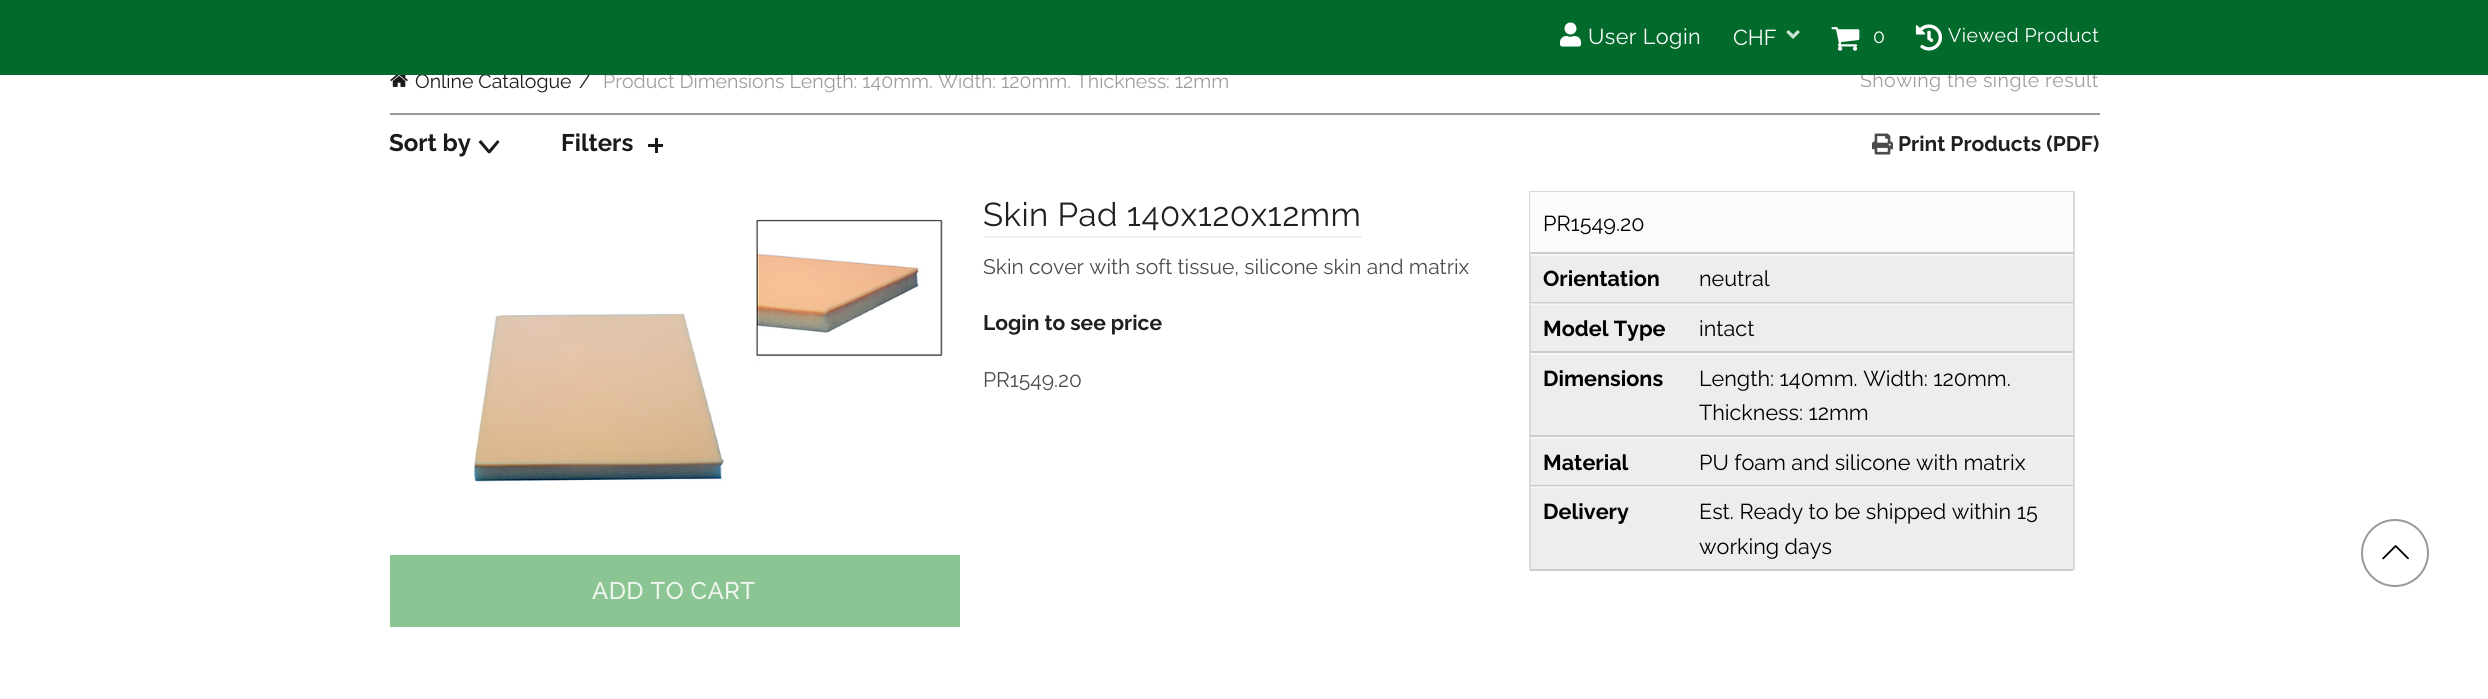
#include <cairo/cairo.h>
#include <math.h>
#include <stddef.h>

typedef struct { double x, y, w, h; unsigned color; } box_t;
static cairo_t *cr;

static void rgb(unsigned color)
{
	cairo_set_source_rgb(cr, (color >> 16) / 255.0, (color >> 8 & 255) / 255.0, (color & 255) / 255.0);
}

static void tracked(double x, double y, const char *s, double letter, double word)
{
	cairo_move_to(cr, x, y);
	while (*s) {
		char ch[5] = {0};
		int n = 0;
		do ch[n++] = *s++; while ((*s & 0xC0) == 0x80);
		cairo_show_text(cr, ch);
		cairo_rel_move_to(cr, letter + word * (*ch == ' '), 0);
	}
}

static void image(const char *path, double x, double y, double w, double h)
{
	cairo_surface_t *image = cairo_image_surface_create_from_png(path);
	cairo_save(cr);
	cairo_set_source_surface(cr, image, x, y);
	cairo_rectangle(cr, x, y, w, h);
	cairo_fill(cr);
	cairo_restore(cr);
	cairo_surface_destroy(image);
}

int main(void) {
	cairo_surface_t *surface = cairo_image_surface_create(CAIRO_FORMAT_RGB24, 2488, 699);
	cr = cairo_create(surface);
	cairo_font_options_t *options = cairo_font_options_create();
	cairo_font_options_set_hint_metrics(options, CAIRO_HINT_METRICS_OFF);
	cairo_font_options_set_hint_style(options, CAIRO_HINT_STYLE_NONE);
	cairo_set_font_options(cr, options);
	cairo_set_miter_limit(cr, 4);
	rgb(0xffffff);
	cairo_paint(cr);
	image("img/5.png", 390, 75, 18, 12);
	rgb(0x999999);
	cairo_rectangle(cr, 390, 113, 1710, 2);
	cairo_fill(cr);
	rgb(0x1b1919);
	cairo_new_path(cr);
	cairo_move_to(cr, 487.5, 151.5);
	cairo_line_to(cr, 497.5, 140);
	cairo_line_to(cr, 499.5, 142);
	cairo_line_to(cr, 490, 153.5);
	cairo_close_path(cr);
	cairo_fill(cr);
	cairo_new_path(cr);
	cairo_move_to(cr, 481, 140);
	cairo_line_to(cr, 490.5, 151.5);
	cairo_line_to(cr, 488.5, 153.5);
	cairo_line_to(cr, 478.5, 142);
	cairo_close_path(cr);
	cairo_fill(cr);
	cairo_rectangle(cr, 655, 138, 3, 15);
	cairo_fill(cr);
	cairo_rectangle(cr, 648, 144, 15, 3);
	cairo_fill(cr);
	image("img/6.png", 1872, 133, 21, 22);
	{
		static const box_t items[] = {
			{984, 236, 378, 2, 0xf1f1f1},
			{1531, 256, 542, 313, 0xededed},
			{1530, 487, 543, 1, 0xf6f6f6},
			{1530, 437, 543, 2, 0xf6f6f6},
			{1530, 353, 543, 2, 0xf6f6f6},
			{1530, 304, 543, 1, 0xf6f6f6},
			{1530, 254, 543, 2, 0xf6f6f6},
			{1531, 194, 542, 58, 0xfbfbfb},
			{1529, 191, 546, 1, 0xd9d9d9},
			{1530, 192, 543, 1, 0xfbfbfb},
			{2073, 191, 2, 379, 0xd9d9d9},
			{1529, 191, 2, 379, 0xd9d9d9},
			{1530, 486, 1, 2, 0xececec},
			{1530, 437, 1, 2, 0xececec},
			{1530, 353, 1, 2, 0xececec},
			{1530, 303, 1, 2, 0xececec},
			{1530, 254, 1, 2, 0xececec},
			{1530, 192, 1, 62, 0xf7f7f7},
			{1530, 192, 1, 2, 0xfbfbfb},
			{1530, 252, 543, 2, 0xcccccc},
			{1530, 302, 543, 1, 0xcccccc},
			{1530, 303, 543, 1, 0xe6e6e6},
			{1530, 351, 543, 2, 0xcccccc},
			{1530, 435, 543, 2, 0xcccccc},
			{1530, 485, 543, 1, 0xcccccc},
			{1530, 486, 543, 1, 0xe6e6e6},
			{1530, 569, 543, 2, 0xcccccc},
		};
		for (size_t i = 0; i < sizeof items / sizeof *items; i++) {
			rgb(items[i].color);
			cairo_rectangle(cr, items[i].x, items[i].y, items[i].w, items[i].h);
			cairo_fill(cr);
		}
	}
	image("img/7.png", 474, 219, 469, 263);
	rgb(0x8cc594);
	cairo_rectangle(cr, 390, 555, 570, 72);
	cairo_fill(cr);
	cairo_arc(cr, 2395, 553, 33, 0, 2 * M_PI);
	rgb(0x999999);
	cairo_stroke(cr);
	image("img/8.png", 2382, 545, 27, 15);
	cairo_select_font_face(cr, "Raleway", CAIRO_FONT_SLANT_NORMAL, CAIRO_FONT_WEIGHT_NORMAL);
	cairo_set_font_size(cr, 19.5);
	rgb(0x1b1919);
	cairo_move_to(cr, 415, 88);
	cairo_show_text(cr, "Online Catalogue");
	cairo_move_to(cr, 579, 88);
	cairo_show_text(cr, "/");
	rgb(0x9e9e9e);
	cairo_move_to(cr, 603, 88);
	cairo_show_text(cr, "Product Dimensions Length: 140mm. Width: 120mm. Thickness: 12mm");
	tracked(1860, 87, "Showing the single result", 0.45, 0);
	rgb(0x026b2c);
	cairo_rectangle(cr, 0, 0, 2488, 75);
	cairo_fill(cr);
	cairo_set_font_size(cr, 21.6);
	rgb(0xffffff);
	cairo_move_to(cr, 1733, 45);
	cairo_show_text(cr, "CHF");
	image("img/2.png", 1786, 30, 14, 9);
	cairo_set_font_size(cr, 19.5);
	tracked(1873, 43, "0", 0.45, 0);
	image("img/3.png", 1831, 27, 29, 24);
	image("img/4.png", 1915, 24, 28, 27);
	image("img/1.png", 1560, 22, 21, 25);
	tracked(1948, 42, "Viewed Product", 0.45, 0);
	cairo_set_font_size(cr, 21.6);
	tracked(1588, 44, "User Login", 0.45, 0);
	cairo_select_font_face(cr, "Raleway", CAIRO_FONT_SLANT_NORMAL, CAIRO_FONT_WEIGHT_BOLD);
	cairo_set_font_size(cr, 24);
	rgb(0x1b1919);
	cairo_move_to(cr, 389, 151);
	cairo_show_text(cr, "Sort by");
	cairo_move_to(cr, 561, 151);
	cairo_show_text(cr, "Filters");
	cairo_set_font_size(cr, 21);
	rgb(0x202020);
	cairo_move_to(cr, 1898, 151);
	cairo_show_text(cr, "Print Products (PDF)");
	cairo_select_font_face(cr, "Raleway", CAIRO_FONT_SLANT_NORMAL, CAIRO_FONT_WEIGHT_NORMAL);
	cairo_set_font_size(cr, 33);
	tracked(983, 226, "Skin Pad 140x120x12mm", 0.45, 0);
	cairo_set_font_size(cr, 21);
	rgb(0x4c4c4c);
	cairo_move_to(cr, 983, 274);
	cairo_show_text(cr, "Skin cover with soft tissue, silicone skin and matrix");
	cairo_select_font_face(cr, "Raleway", CAIRO_FONT_SLANT_NORMAL, CAIRO_FONT_WEIGHT_BOLD);
	rgb(0x202020);
	cairo_move_to(cr, 983, 330);
	cairo_show_text(cr, "Login to see price");
	cairo_select_font_face(cr, "Raleway", CAIRO_FONT_SLANT_NORMAL, CAIRO_FONT_WEIGHT_NORMAL);
	rgb(0x4c4c4c);
	cairo_move_to(cr, 983, 387);
	cairo_show_text(cr, "PR1549.20");
	cairo_set_font_size(cr, 21.6);
	rgb(0x000000);
	cairo_move_to(cr, 1543, 231);
	cairo_show_text(cr, "PR1549.20");
	cairo_select_font_face(cr, "Raleway", CAIRO_FONT_SLANT_NORMAL, CAIRO_FONT_WEIGHT_BOLD);
	cairo_move_to(cr, 1543, 286);
	cairo_show_text(cr, "Orientation");
	cairo_select_font_face(cr, "Raleway", CAIRO_FONT_SLANT_NORMAL, CAIRO_FONT_WEIGHT_NORMAL);
	cairo_move_to(cr, 1699, 286);
	cairo_show_text(cr, "neutral");
	cairo_select_font_face(cr, "Raleway", CAIRO_FONT_SLANT_NORMAL, CAIRO_FONT_WEIGHT_BOLD);
	cairo_move_to(cr, 1543, 336);
	cairo_show_text(cr, "Model Type");
	cairo_select_font_face(cr, "Raleway", CAIRO_FONT_SLANT_NORMAL, CAIRO_FONT_WEIGHT_NORMAL);
	cairo_move_to(cr, 1699, 336);
	cairo_show_text(cr, "intact");
	cairo_select_font_face(cr, "Raleway", CAIRO_FONT_SLANT_NORMAL, CAIRO_FONT_WEIGHT_BOLD);
	cairo_move_to(cr, 1543, 386);
	cairo_show_text(cr, "Dimensions");
	cairo_select_font_face(cr, "Raleway", CAIRO_FONT_SLANT_NORMAL, CAIRO_FONT_WEIGHT_NORMAL);
	cairo_move_to(cr, 1699, 386);
	cairo_show_text(cr, "Length: 140mm. Width: 120mm.");
	cairo_move_to(cr, 1699, 420);
	cairo_show_text(cr, "Thickness: 12mm");
	cairo_select_font_face(cr, "Raleway", CAIRO_FONT_SLANT_NORMAL, CAIRO_FONT_WEIGHT_BOLD);
	cairo_move_to(cr, 1543, 470);
	cairo_show_text(cr, "Material");
	cairo_select_font_face(cr, "Raleway", CAIRO_FONT_SLANT_NORMAL, CAIRO_FONT_WEIGHT_NORMAL);
	cairo_move_to(cr, 1699, 470);
	cairo_show_text(cr, "PU foam and silicone with matrix");
	cairo_select_font_face(cr, "Raleway", CAIRO_FONT_SLANT_NORMAL, CAIRO_FONT_WEIGHT_BOLD);
	cairo_move_to(cr, 1543, 519);
	cairo_show_text(cr, "Delivery");
	cairo_select_font_face(cr, "Raleway", CAIRO_FONT_SLANT_NORMAL, CAIRO_FONT_WEIGHT_NORMAL);
	cairo_move_to(cr, 1699, 519);
	cairo_show_text(cr, "Est. Ready to be shipped within 15");
	cairo_move_to(cr, 1699, 554);
	cairo_show_text(cr, "working days");
	cairo_select_font_face(cr, "Raleway Medium", CAIRO_FONT_SLANT_NORMAL, CAIRO_FONT_WEIGHT_NORMAL);
	cairo_set_font_size(cr, 24);
	rgb(0xeef6ef);
	tracked(592, 599, "ADD TO CART", 0.45, 0);
	cairo_surface_write_to_png(surface, "page.png");
	cairo_font_options_destroy(options);
	cairo_destroy(cr);
	cairo_surface_destroy(surface);
	return 0;
}
